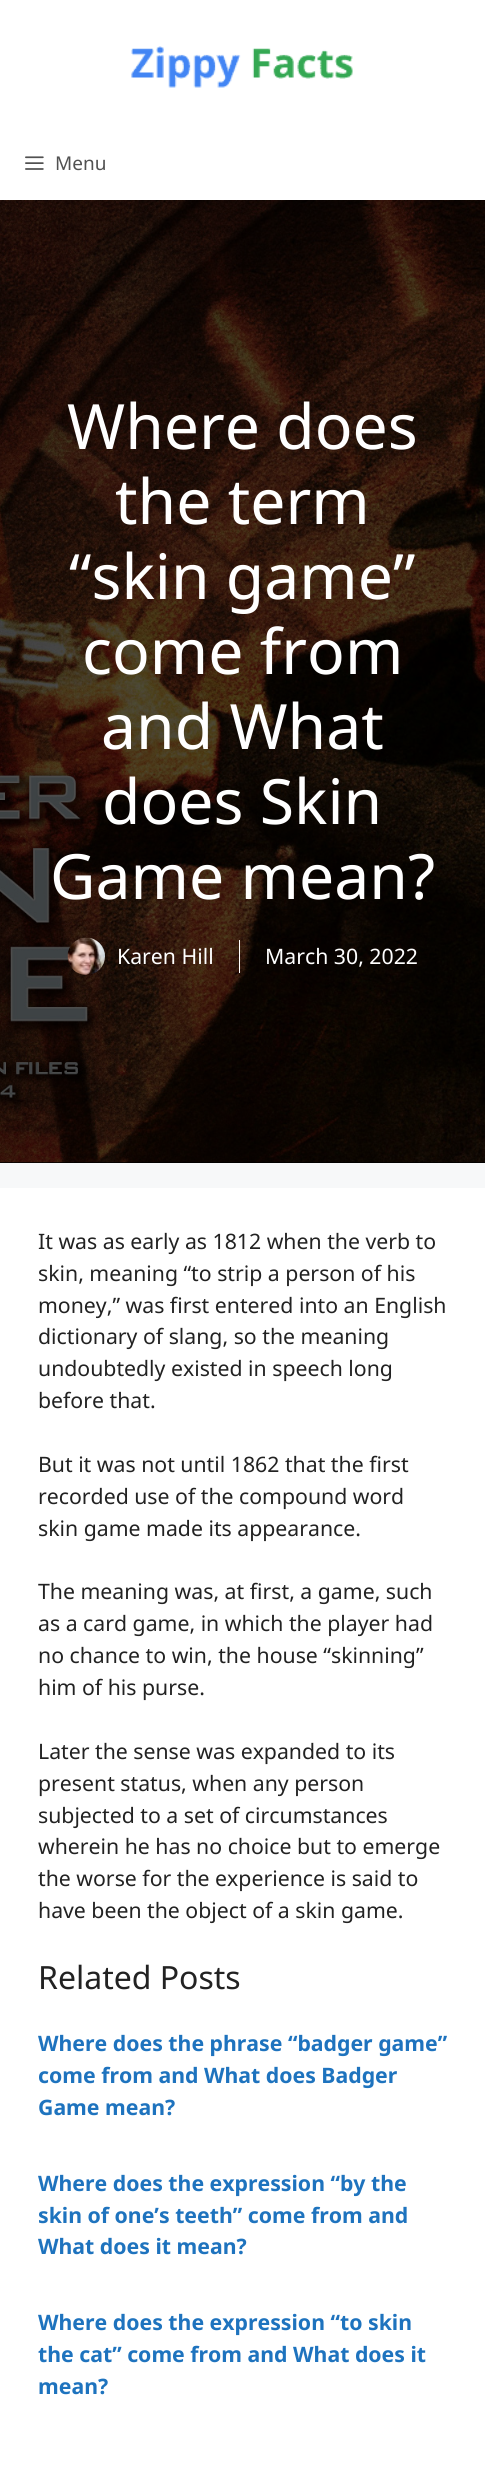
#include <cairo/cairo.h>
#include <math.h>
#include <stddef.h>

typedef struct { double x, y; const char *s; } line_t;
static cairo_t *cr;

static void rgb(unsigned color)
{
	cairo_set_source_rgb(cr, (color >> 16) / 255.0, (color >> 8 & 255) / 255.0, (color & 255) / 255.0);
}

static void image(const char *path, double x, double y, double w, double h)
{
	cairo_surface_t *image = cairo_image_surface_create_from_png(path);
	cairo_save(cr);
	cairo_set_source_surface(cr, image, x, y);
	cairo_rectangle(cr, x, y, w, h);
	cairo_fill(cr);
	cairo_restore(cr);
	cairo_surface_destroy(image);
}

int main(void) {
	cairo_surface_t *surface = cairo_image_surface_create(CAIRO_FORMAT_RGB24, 485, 2476);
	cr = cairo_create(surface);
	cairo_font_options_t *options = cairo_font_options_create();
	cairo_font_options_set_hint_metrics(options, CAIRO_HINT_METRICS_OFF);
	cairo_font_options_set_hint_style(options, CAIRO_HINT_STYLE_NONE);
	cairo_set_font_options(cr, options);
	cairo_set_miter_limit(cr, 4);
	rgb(0xf7f8f9);
	cairo_paint(cr);
	rgb(0xffffff);
	cairo_rectangle(cr, 0, 0, 485, 200);
	cairo_fill(cr);
	image("img/1.png", 131, 46, 222, 42);
	image("img/2.png", 25, 156, 19, 14);
	rgb(0x000000);
	cairo_rectangle(cr, 0, 200, 485, 963);
	cairo_fill(cr);
	image("img/3.png", 0, 200, 485, 963);
	image("img/4.png", 67, 937, 38, 38);
	rgb(0xffffff);
	cairo_rectangle(cr, 239, 940, 1, 33);
	cairo_fill(cr);
	cairo_rectangle(cr, 0, 1188, 485, 1288);
	cairo_fill(cr);
	cairo_select_font_face(cr, "Noto Sans", CAIRO_FONT_SLANT_NORMAL, CAIRO_FONT_WEIGHT_NORMAL);
	cairo_set_font_size(cr, 19);
	rgb(0x515151);
	cairo_move_to(cr, 55, 170);
	cairo_show_text(cr, "Menu");
	cairo_set_font_size(cr, 62.5);
	rgb(0xffffff);
	{
		static const line_t items[] = {
			{67, 449, "Where does"},
			{115, 524, "the term"},
			{69, 599, "“skin game”"},
			{82, 674, "come from"},
			{101, 749, "and What"},
			{102, 824, "does Skin"},
			{50, 899, "Game mean?"},
		};
		for (size_t i = 0; i < sizeof items / sizeof *items; i++) {
			cairo_move_to(cr, items[i].x, items[i].y);
			cairo_show_text(cr, items[i].s);
		}
	}
	cairo_set_font_size(cr, 21.25);
	cairo_move_to(cr, 117, 964);
	cairo_show_text(cr, "Karen Hill");
	cairo_move_to(cr, 265, 964);
	cairo_show_text(cr, "March 30, 2022");
	rgb(0x222222);
	{
		static const line_t items[] = {
			{38, 1249, "It was as early as 1812 when the verb to"},
			{38, 1281, "skin, meaning “to strip a person of his"},
			{38, 1313, "money,” was first entered into an English"},
			{38, 1344, "dictionary of slang, so the meaning"},
			{38, 1376, "undoubtedly existed in speech long"},
			{38, 1408, "before that."},
			{38, 1472, "But it was not until 1862 that the first"},
			{38, 1504, "recorded use of the compound word"},
			{38, 1536, "skin game made its appearance."},
			{38, 1599, "The meaning was, at first, a game, such"},
			{38, 1631, "as a card game, in which the player had"},
			{38, 1663, "no chance to win, the house “skinning”"},
			{38, 1695, "him of his purse."},
			{38, 1759, "Later the sense was expanded to its"},
			{38, 1791, "present status, when any person"},
			{38, 1823, "subjected to a set of circumstances"},
			{38, 1854, "wherein he has no choice but to emerge"},
			{38, 1886, "the worse for the experience is said to"},
			{38, 1918, "have been the object of a skin game."},
		};
		for (size_t i = 0; i < sizeof items / sizeof *items; i++) {
			cairo_move_to(cr, items[i].x, items[i].y);
			cairo_show_text(cr, items[i].s);
		}
	}
	cairo_set_font_size(cr, 32);
	cairo_move_to(cr, 38, 1989);
	cairo_show_text(cr, "Related Posts");
	cairo_select_font_face(cr, "Noto Sans", CAIRO_FONT_SLANT_NORMAL, CAIRO_FONT_WEIGHT_BOLD);
	cairo_set_font_size(cr, 21.25);
	rgb(0x1e73be);
	{
		static const line_t items[] = {
			{38, 2051, "Where does the phrase “badger game”"},
			{38, 2083, "come from and What does Badger"},
			{38, 2115, "Game mean?"},
			{38, 2191, "Where does the expression “by the"},
			{38, 2223, "skin of one’s teeth” come from and"},
			{38, 2254, "What does it mean?"},
			{38, 2330, "Where does the expression “to skin"},
			{38, 2362, "the cat” come from and What does it"},
			{38, 2394, "mean?"},
		};
		for (size_t i = 0; i < sizeof items / sizeof *items; i++) {
			cairo_move_to(cr, items[i].x, items[i].y);
			cairo_show_text(cr, items[i].s);
		}
	}
	cairo_surface_write_to_png(surface, "page.png");
	cairo_font_options_destroy(options);
	cairo_destroy(cr);
	cairo_surface_destroy(surface);
	return 0;
}
